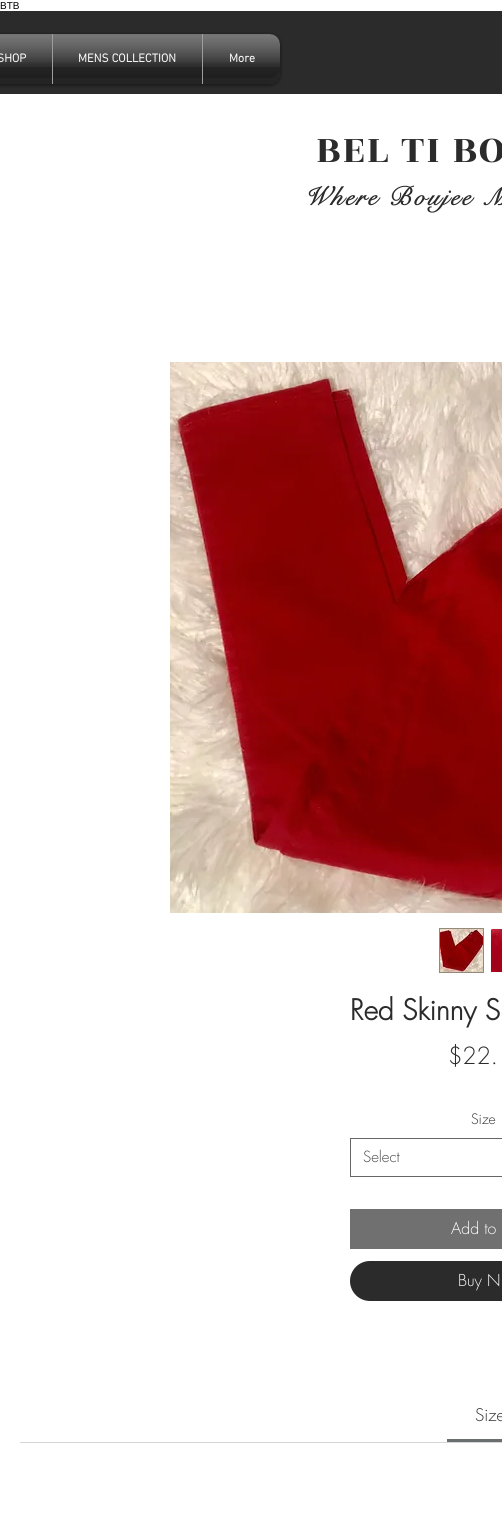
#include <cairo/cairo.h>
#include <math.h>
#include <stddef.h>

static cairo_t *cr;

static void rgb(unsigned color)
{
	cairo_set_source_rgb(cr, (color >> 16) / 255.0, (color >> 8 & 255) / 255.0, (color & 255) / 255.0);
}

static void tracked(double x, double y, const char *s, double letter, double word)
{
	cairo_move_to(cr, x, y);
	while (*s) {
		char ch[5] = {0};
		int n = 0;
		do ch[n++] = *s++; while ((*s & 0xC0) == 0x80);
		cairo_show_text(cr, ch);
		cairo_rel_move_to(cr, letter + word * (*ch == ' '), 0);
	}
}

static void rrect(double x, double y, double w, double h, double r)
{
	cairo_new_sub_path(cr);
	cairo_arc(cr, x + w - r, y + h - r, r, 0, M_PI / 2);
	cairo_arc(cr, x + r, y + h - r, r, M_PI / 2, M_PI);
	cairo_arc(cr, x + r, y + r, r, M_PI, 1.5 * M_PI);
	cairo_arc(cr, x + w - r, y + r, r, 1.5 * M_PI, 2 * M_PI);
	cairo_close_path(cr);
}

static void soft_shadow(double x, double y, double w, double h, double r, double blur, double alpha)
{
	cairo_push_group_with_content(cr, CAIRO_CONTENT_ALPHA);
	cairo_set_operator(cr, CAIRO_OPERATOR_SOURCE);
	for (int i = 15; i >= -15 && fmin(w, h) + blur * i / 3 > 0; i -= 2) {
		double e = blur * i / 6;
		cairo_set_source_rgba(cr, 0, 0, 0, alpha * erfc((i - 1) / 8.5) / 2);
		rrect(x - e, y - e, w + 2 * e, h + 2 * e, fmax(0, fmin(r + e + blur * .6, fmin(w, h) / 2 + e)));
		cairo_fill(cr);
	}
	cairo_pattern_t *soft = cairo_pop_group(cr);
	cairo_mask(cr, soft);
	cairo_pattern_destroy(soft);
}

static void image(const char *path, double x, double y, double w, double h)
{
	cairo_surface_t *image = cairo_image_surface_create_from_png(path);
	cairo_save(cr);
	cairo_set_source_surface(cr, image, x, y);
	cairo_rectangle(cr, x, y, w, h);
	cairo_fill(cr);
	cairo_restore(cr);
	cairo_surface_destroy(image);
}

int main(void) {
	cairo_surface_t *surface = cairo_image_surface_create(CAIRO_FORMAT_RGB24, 502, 1536);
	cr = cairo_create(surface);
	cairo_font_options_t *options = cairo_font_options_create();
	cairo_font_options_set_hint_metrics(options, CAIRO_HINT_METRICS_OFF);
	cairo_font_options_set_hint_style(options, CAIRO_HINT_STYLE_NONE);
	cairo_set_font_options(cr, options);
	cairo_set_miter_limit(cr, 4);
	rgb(0xffffff);
	cairo_paint(cr);
	rgb(0x2b2b2b);
	cairo_rectangle(cr, 0, 11, 502, 83);
	cairo_fill(cr);
	cairo_save(cr);
	cairo_set_fill_rule(cr, CAIRO_FILL_RULE_EVEN_ODD);
	cairo_new_path(cr);
	cairo_move_to(cr, 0, 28);
	cairo_line_to(cr, 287, 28);
	cairo_line_to(cr, 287, 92);
	cairo_line_to(cr, 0, 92);
	cairo_close_path(cr);
	cairo_move_to(cr, -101, 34);
	cairo_line_to(cr, 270, 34);
	cairo_curve_to(cr, 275.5, 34, 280, 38.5, 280, 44);
	cairo_line_to(cr, 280, 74);
	cairo_curve_to(cr, 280, 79.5, 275.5, 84, 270, 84);
	cairo_line_to(cr, -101, 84);
	cairo_curve_to(cr, -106.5, 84, -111, 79.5, -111, 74);
	cairo_line_to(cr, -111, 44);
	cairo_curve_to(cr, -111, 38.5, -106.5, 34, -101, 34);
	cairo_close_path(cr);
	cairo_clip(cr);
	rgb(0x000000);
	soft_shadow(-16, 35, 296, 50, 10, 2, 0.6);
	cairo_restore(cr);
	image("img/1.png", 0, 34, 280, 33);
	image("img/2.png", 0, 62, 280, 16);
	rgb(0x9b9e9e);
	cairo_rectangle(cr, 52, 34, 1, 50);
	cairo_fill(cr);
	cairo_rectangle(cr, 202, 34, 1, 50);
	cairo_fill(cr);
	image("img/9.png", 170, 362, 332, 551);
	cairo_rectangle(cr, 439.5, 928.5, 44, 44);
	rgb(0x938a7c);
	cairo_set_line_width(cr, 1);
	cairo_stroke(cr);
	image("img/10.png", 440, 929, 43, 43);
	rgb(0xfafafa);
	cairo_rectangle(cr, 490, 928, 12, 45);
	cairo_fill(cr);
	image("img/11.png", 491, 929, 11, 43);
	cairo_rectangle(cr, 350.5, 1138.5, 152, 38);
	rgb(0x666666);
	cairo_stroke(cr);
	rgb(0x707070);
	cairo_rectangle(cr, 350, 1209, 152, 40);
	cairo_fill(cr);
	rgb(0x2b2b2b);
	rrect(350, 1261, 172, 40, 20);
	cairo_fill(cr);
	rgb(0xd5d5d5);
	cairo_rectangle(cr, 20, 1442, 482, 1);
	cairo_fill(cr);
	rgb(0x6b6e6e);
	cairo_rectangle(cr, 447, 1439, 55, 3);
	cairo_fill(cr);
	cairo_select_font_face(cr, "Liberation Sans", CAIRO_FONT_SLANT_NORMAL, CAIRO_FONT_WEIGHT_NORMAL);
	cairo_set_font_size(cr, 10);
	rgb(0x000000);
	cairo_move_to(cr, 0, 9);
	cairo_show_text(cr, "BTB");
	cairo_select_font_face(cr, "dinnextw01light", CAIRO_FONT_SLANT_NORMAL, CAIRO_FONT_WEIGHT_BOLD);
	cairo_set_font_size(cr, 12);
	rgb(0xffffff);
	cairo_move_to(cr, -3, 62);
	cairo_show_text(cr, "SHOP");
	image("img/3.png", 0, 34, 52, 33);
	image("img/4.png", 0, 58, 52, 26);
	cairo_move_to(cr, 78, 62);
	cairo_show_text(cr, "MENS COLLECTION");
	image("img/5.png", 53, 34, 149, 33);
	image("img/6.png", 53, 58, 149, 26);
	cairo_move_to(cr, 229, 62);
	cairo_show_text(cr, "More");
	image("img/7.png", 203, 34, 77, 33);
	image("img/8.png", 203, 58, 77, 26);
	cairo_select_font_face(cr, "Rozha One", CAIRO_FONT_SLANT_NORMAL, CAIRO_FONT_WEIGHT_NORMAL);
	cairo_set_font_size(cr, 41);
	rgb(0x2b2b2b);
	tracked(316, 162, "BEL TI BO", 2, 0);
	cairo_select_font_face(cr, "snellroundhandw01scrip", CAIRO_FONT_SLANT_NORMAL, CAIRO_FONT_WEIGHT_BOLD);
	cairo_set_font_size(cr, 26);
	tracked(304, 205, "Where Boujee M", 2.6, 0);
	cairo_select_font_face(cr, "futura", CAIRO_FONT_SLANT_NORMAL, CAIRO_FONT_WEIGHT_BOLD);
	cairo_set_font_size(cr, 28);
	cairo_move_to(cr, 350, 1020);
	cairo_show_text(cr, "Red Skinny S");
	cairo_select_font_face(cr, "futura Light", CAIRO_FONT_SLANT_NORMAL, CAIRO_FONT_WEIGHT_NORMAL);
	cairo_set_font_size(cr, 23);
	cairo_move_to(cr, 448, 1064);
	cairo_show_text(cr, "$22.");
	cairo_set_font_size(cr, 14);
	cairo_move_to(cr, 471, 1124);
	cairo_show_text(cr, "Size");
	cairo_set_font_size(cr, 15);
	rgb(0x444444);
	cairo_move_to(cr, 363, 1162);
	cairo_show_text(cr, "Select");
	cairo_set_font_size(cr, 16);
	rgb(0xffffff);
	cairo_move_to(cr, 451, 1234);
	cairo_show_text(cr, "Add to");
	cairo_move_to(cr, 458, 1286);
	cairo_show_text(cr, "Buy N");
	cairo_set_font_size(cr, 17);
	rgb(0x2b2b2b);
	cairo_move_to(cr, 475, 1421);
	cairo_show_text(cr, "Size");
	cairo_surface_write_to_png(surface, "page.png");
	cairo_font_options_destroy(options);
	cairo_destroy(cr);
	cairo_surface_destroy(surface);
	return 0;
}
